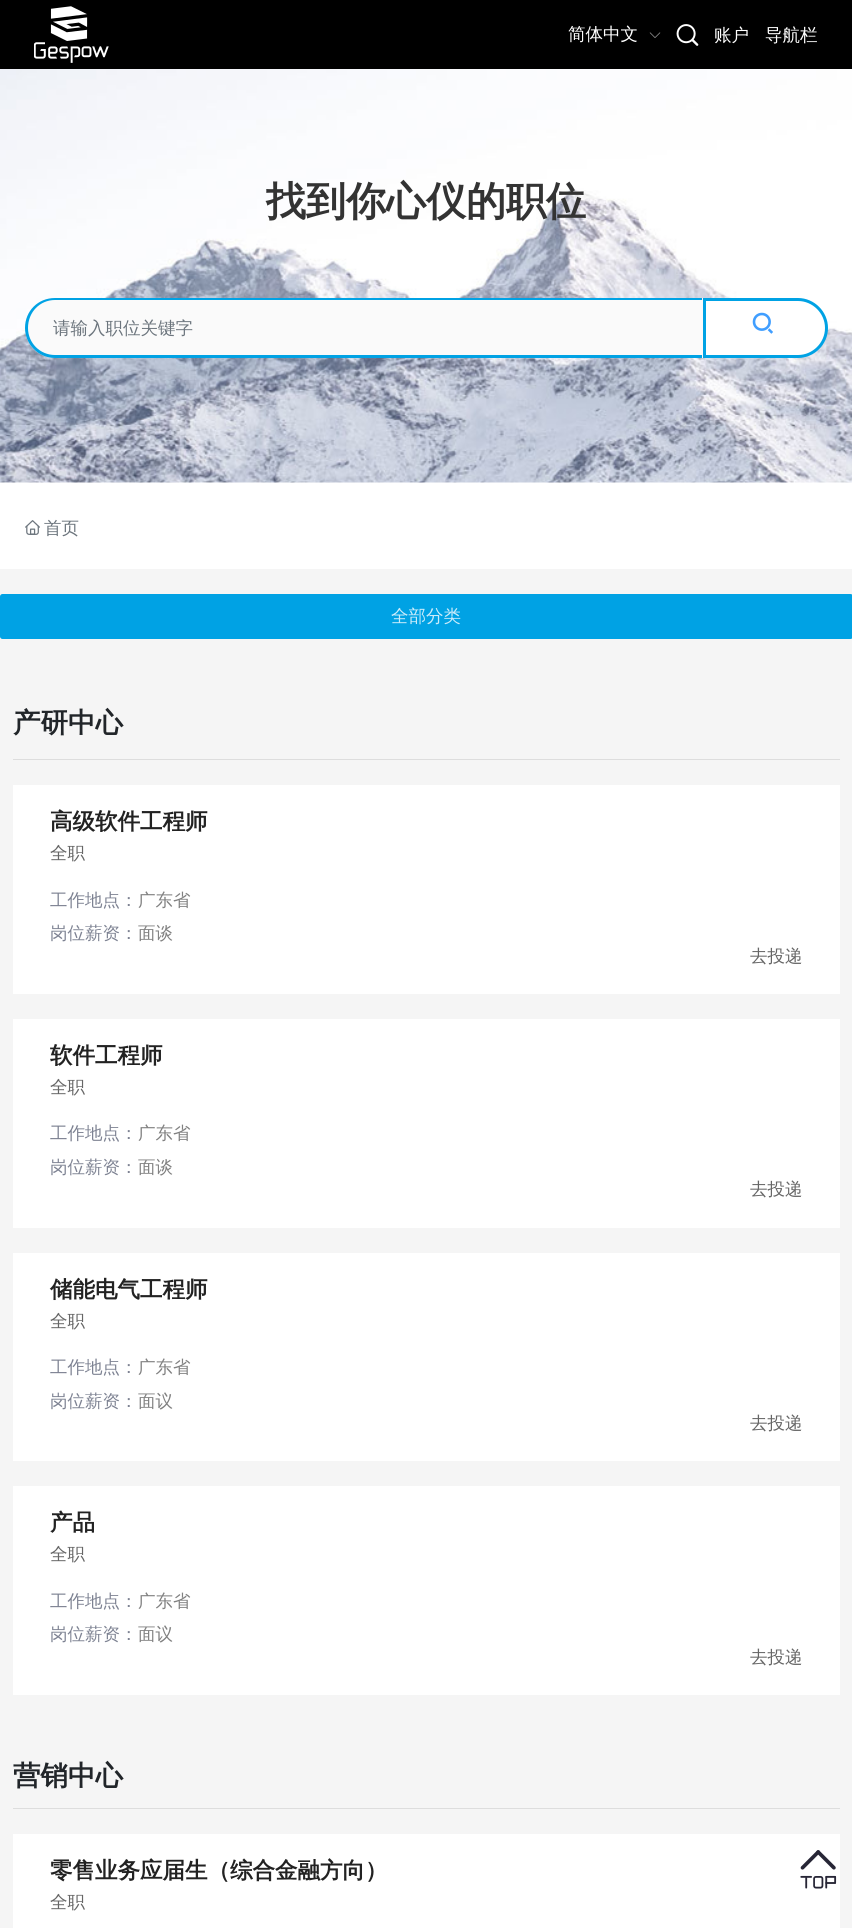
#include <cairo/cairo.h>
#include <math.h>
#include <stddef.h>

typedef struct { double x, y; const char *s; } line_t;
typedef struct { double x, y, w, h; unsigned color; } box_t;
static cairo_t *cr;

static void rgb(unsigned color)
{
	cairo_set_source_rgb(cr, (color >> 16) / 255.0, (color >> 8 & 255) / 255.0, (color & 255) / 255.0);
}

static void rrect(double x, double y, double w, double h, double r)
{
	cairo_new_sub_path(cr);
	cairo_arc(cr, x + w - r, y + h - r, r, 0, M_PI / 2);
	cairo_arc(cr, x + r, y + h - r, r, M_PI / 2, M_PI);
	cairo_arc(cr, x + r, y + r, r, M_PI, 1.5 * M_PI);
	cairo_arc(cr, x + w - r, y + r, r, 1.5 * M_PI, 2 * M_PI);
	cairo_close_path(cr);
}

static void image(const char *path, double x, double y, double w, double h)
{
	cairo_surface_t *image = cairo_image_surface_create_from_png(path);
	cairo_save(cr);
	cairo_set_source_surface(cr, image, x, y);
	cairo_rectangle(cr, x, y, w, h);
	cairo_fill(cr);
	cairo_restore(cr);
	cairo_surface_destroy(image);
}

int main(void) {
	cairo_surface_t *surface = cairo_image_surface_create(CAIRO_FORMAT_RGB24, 852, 1928);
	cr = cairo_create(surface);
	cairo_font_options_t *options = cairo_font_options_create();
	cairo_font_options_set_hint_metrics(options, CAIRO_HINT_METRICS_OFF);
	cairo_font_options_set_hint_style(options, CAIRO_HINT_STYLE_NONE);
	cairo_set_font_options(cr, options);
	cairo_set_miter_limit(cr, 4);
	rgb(0xffffff);
	cairo_paint(cr);
	rgb(0x000000);
	cairo_rectangle(cr, 0, 0, 852, 69);
	cairo_fill(cr);
	image("img/1.png", 34, 6, 75, 57);
	image("img/2.png", 649, 32, 12, 6);
	image("img/3.png", 676, 24, 23, 22);
	image("img/4.png", 0, 69, 852, 414);
	rgb(0xfafafa);
	cairo_new_path(cr);
	cairo_move_to(cr, 55, 298);
	cairo_line_to(cr, 703, 298);
	cairo_line_to(cr, 703, 358);
	cairo_line_to(cr, 55, 358);
	cairo_curve_to(cr, 38.5, 358, 25, 344.5, 25, 328);
	cairo_curve_to(cr, 25, 311.5, 38.5, 298, 55, 298);
	cairo_close_path(cr);
	cairo_fill(cr);
	rgb(0x00a2e4);
	cairo_set_fill_rule(cr, CAIRO_FILL_RULE_EVEN_ODD);
	cairo_new_path(cr);
	cairo_move_to(cr, 55, 298);
	cairo_line_to(cr, 702, 298);
	cairo_line_to(cr, 702, 358);
	cairo_line_to(cr, 55, 358);
	cairo_curve_to(cr, 38, 358, 25, 344, 25, 328);
	cairo_curve_to(cr, 25, 311, 38, 298, 55, 298);
	cairo_close_path(cr);
	cairo_move_to(cr, 55, 300);
	cairo_line_to(cr, 702, 300);
	cairo_line_to(cr, 702, 355);
	cairo_line_to(cr, 55, 355);
	cairo_curve_to(cr, 40, 355, 28, 343, 28, 328);
	cairo_curve_to(cr, 28, 312, 40, 300, 55, 300);
	cairo_close_path(cr);
	cairo_fill(cr);
	rgb(0xffffff);
	cairo_new_path(cr);
	cairo_move_to(cr, 704.5, 299.5);
	cairo_line_to(cr, 798, 299.5);
	cairo_curve_to(cr, 813.5, 299.5, 826.5, 312.5, 826.5, 328);
	cairo_curve_to(cr, 826.5, 343.5, 813.5, 356.5, 798, 356.5);
	cairo_line_to(cr, 704.5, 356.5);
	cairo_close_path(cr);
	cairo_fill_preserve(cr);
	rgb(0x00a2e4);
	cairo_set_line_width(cr, 3);
	cairo_stroke(cr);
	image("img/5.png", 752, 312, 21, 22);
	image("img/6.png", 25, 520, 15, 15);
	rgb(0xf5f5f5);
	cairo_rectangle(cr, 0, 569, 852, 1359);
	cairo_fill(cr);
	rgb(0x00a2e4);
	rrect(0, 594, 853, 45, 2.5);
	cairo_fill(cr);
	{
		static const box_t items[] = {
			{13, 759, 827, 1, 0xdddddd},
			{13, 785, 827, 209, 0xffffff},
			{13, 1019, 827, 209, 0xffffff},
			{13, 1253, 827, 208, 0xffffff},
			{13, 1486, 827, 209, 0xffffff},
			{13, 1808, 827, 1, 0xdddddd},
			{13, 1834, 827, 94, 0xffffff},
		};
		for (size_t i = 0; i < sizeof items / sizeof *items; i++) {
			rgb(items[i].color);
			cairo_rectangle(cr, items[i].x, items[i].y, items[i].w, items[i].h);
			cairo_fill(cr);
		}
	}
	image("img/7.png", 800, 1850, 37, 39);
	cairo_select_font_face(cr, "WenQuanYi Zen Hei Medium", CAIRO_FONT_SLANT_NORMAL, CAIRO_FONT_WEIGHT_NORMAL);
	cairo_set_font_size(cr, 17.5);
	{
		static const line_t items[] = {
			{568, 40, "简体中文"},
			{714, 41, "账户"},
			{765, 41, "导航栏"},
		};
		for (size_t i = 0; i < sizeof items / sizeof *items; i++) {
			cairo_move_to(cr, items[i].x, items[i].y);
			cairo_show_text(cr, items[i].s);
		}
	}
	cairo_select_font_face(cr, "WenQuanYi Zen Hei", CAIRO_FONT_SLANT_NORMAL, CAIRO_FONT_WEIGHT_BOLD);
	cairo_set_font_size(cr, 40);
	rgb(0x333333);
	cairo_move_to(cr, 266, 215);
	cairo_show_text(cr, "找到你心仪的职位");
	cairo_select_font_face(cr, "WenQuanYi Zen Hei Medium", CAIRO_FONT_SLANT_NORMAL, CAIRO_FONT_WEIGHT_NORMAL);
	cairo_set_font_size(cr, 17.5);
	rgb(0x6c757d);
	cairo_move_to(cr, 53, 334);
	cairo_show_text(cr, "请输入职位关键字");
	cairo_move_to(cr, 44, 534);
	cairo_show_text(cr, "首页");
	rgb(0xccecfa);
	cairo_move_to(cr, 391, 622);
	cairo_show_text(cr, "全部分类");
	cairo_select_font_face(cr, "WenQuanYi Zen Hei", CAIRO_FONT_SLANT_NORMAL, CAIRO_FONT_WEIGHT_BOLD);
	cairo_set_font_size(cr, 27.5);
	rgb(0x212529);
	cairo_move_to(cr, 13, 732);
	cairo_show_text(cr, "产研中心");
	cairo_set_font_size(cr, 22.5);
	rgb(0x222222);
	cairo_move_to(cr, 50, 829);
	cairo_show_text(cr, "高级软件工程师");
	cairo_select_font_face(cr, "WenQuanYi Zen Hei Medium", CAIRO_FONT_SLANT_NORMAL, CAIRO_FONT_WEIGHT_NORMAL);
	cairo_set_font_size(cr, 17.5);
	rgb(0x666666);
	cairo_move_to(cr, 50, 859);
	cairo_show_text(cr, "全职");
	rgb(0x7d8292);
	cairo_move_to(cr, 50, 906);
	cairo_show_text(cr, "工作地点：");
	rgb(0x808080);
	cairo_move_to(cr, 138, 906);
	cairo_show_text(cr, "广东省");
	rgb(0x7d8292);
	cairo_move_to(cr, 50, 939);
	cairo_show_text(cr, "岗位薪资：");
	rgb(0x808080);
	cairo_move_to(cr, 138, 939);
	cairo_show_text(cr, "面谈");
	rgb(0x666666);
	cairo_move_to(cr, 750, 962);
	cairo_show_text(cr, "去投递");
	cairo_select_font_face(cr, "WenQuanYi Zen Hei", CAIRO_FONT_SLANT_NORMAL, CAIRO_FONT_WEIGHT_BOLD);
	cairo_set_font_size(cr, 22.5);
	rgb(0x222222);
	cairo_move_to(cr, 50, 1063);
	cairo_show_text(cr, "软件工程师");
	cairo_select_font_face(cr, "WenQuanYi Zen Hei Medium", CAIRO_FONT_SLANT_NORMAL, CAIRO_FONT_WEIGHT_NORMAL);
	cairo_set_font_size(cr, 17.5);
	rgb(0x666666);
	cairo_move_to(cr, 50, 1093);
	cairo_show_text(cr, "全职");
	rgb(0x7d8292);
	cairo_move_to(cr, 50, 1139);
	cairo_show_text(cr, "工作地点：");
	rgb(0x808080);
	cairo_move_to(cr, 138, 1139);
	cairo_show_text(cr, "广东省");
	rgb(0x7d8292);
	cairo_move_to(cr, 50, 1173);
	cairo_show_text(cr, "岗位薪资：");
	rgb(0x808080);
	cairo_move_to(cr, 138, 1173);
	cairo_show_text(cr, "面谈");
	rgb(0x666666);
	cairo_move_to(cr, 750, 1195);
	cairo_show_text(cr, "去投递");
	cairo_select_font_face(cr, "WenQuanYi Zen Hei", CAIRO_FONT_SLANT_NORMAL, CAIRO_FONT_WEIGHT_BOLD);
	cairo_set_font_size(cr, 22.5);
	rgb(0x222222);
	cairo_move_to(cr, 50, 1297);
	cairo_show_text(cr, "储能电气工程师");
	cairo_select_font_face(cr, "WenQuanYi Zen Hei Medium", CAIRO_FONT_SLANT_NORMAL, CAIRO_FONT_WEIGHT_NORMAL);
	cairo_set_font_size(cr, 17.5);
	rgb(0x666666);
	cairo_move_to(cr, 50, 1327);
	cairo_show_text(cr, "全职");
	rgb(0x7d8292);
	cairo_move_to(cr, 50, 1373);
	cairo_show_text(cr, "工作地点：");
	rgb(0x808080);
	cairo_move_to(cr, 138, 1373);
	cairo_show_text(cr, "广东省");
	rgb(0x7d8292);
	cairo_move_to(cr, 50, 1407);
	cairo_show_text(cr, "岗位薪资：");
	rgb(0x808080);
	cairo_move_to(cr, 138, 1407);
	cairo_show_text(cr, "面议");
	rgb(0x666666);
	cairo_move_to(cr, 750, 1429);
	cairo_show_text(cr, "去投递");
	cairo_select_font_face(cr, "WenQuanYi Zen Hei", CAIRO_FONT_SLANT_NORMAL, CAIRO_FONT_WEIGHT_BOLD);
	cairo_set_font_size(cr, 22.5);
	rgb(0x222222);
	cairo_move_to(cr, 50, 1530);
	cairo_show_text(cr, "产品");
	cairo_select_font_face(cr, "WenQuanYi Zen Hei Medium", CAIRO_FONT_SLANT_NORMAL, CAIRO_FONT_WEIGHT_NORMAL);
	cairo_set_font_size(cr, 17.5);
	rgb(0x666666);
	cairo_move_to(cr, 50, 1560);
	cairo_show_text(cr, "全职");
	rgb(0x7d8292);
	cairo_move_to(cr, 50, 1607);
	cairo_show_text(cr, "工作地点：");
	rgb(0x808080);
	cairo_move_to(cr, 138, 1607);
	cairo_show_text(cr, "广东省");
	rgb(0x7d8292);
	cairo_move_to(cr, 50, 1640);
	cairo_show_text(cr, "岗位薪资：");
	rgb(0x808080);
	cairo_move_to(cr, 138, 1640);
	cairo_show_text(cr, "面议");
	rgb(0x666666);
	cairo_move_to(cr, 750, 1663);
	cairo_show_text(cr, "去投递");
	cairo_select_font_face(cr, "WenQuanYi Zen Hei", CAIRO_FONT_SLANT_NORMAL, CAIRO_FONT_WEIGHT_BOLD);
	cairo_set_font_size(cr, 27.5);
	rgb(0x212529);
	cairo_move_to(cr, 13, 1785);
	cairo_show_text(cr, "营销中心");
	cairo_set_font_size(cr, 22.5);
	rgb(0x222222);
	cairo_move_to(cr, 50, 1878);
	cairo_show_text(cr, "零售业务应届生（综合金融方向）");
	cairo_select_font_face(cr, "WenQuanYi Zen Hei Medium", CAIRO_FONT_SLANT_NORMAL, CAIRO_FONT_WEIGHT_NORMAL);
	cairo_set_font_size(cr, 17.5);
	rgb(0x666666);
	cairo_move_to(cr, 50, 1908);
	cairo_show_text(cr, "全职");
	cairo_surface_write_to_png(surface, "page.png");
	cairo_font_options_destroy(options);
	cairo_destroy(cr);
	cairo_surface_destroy(surface);
	return 0;
}
